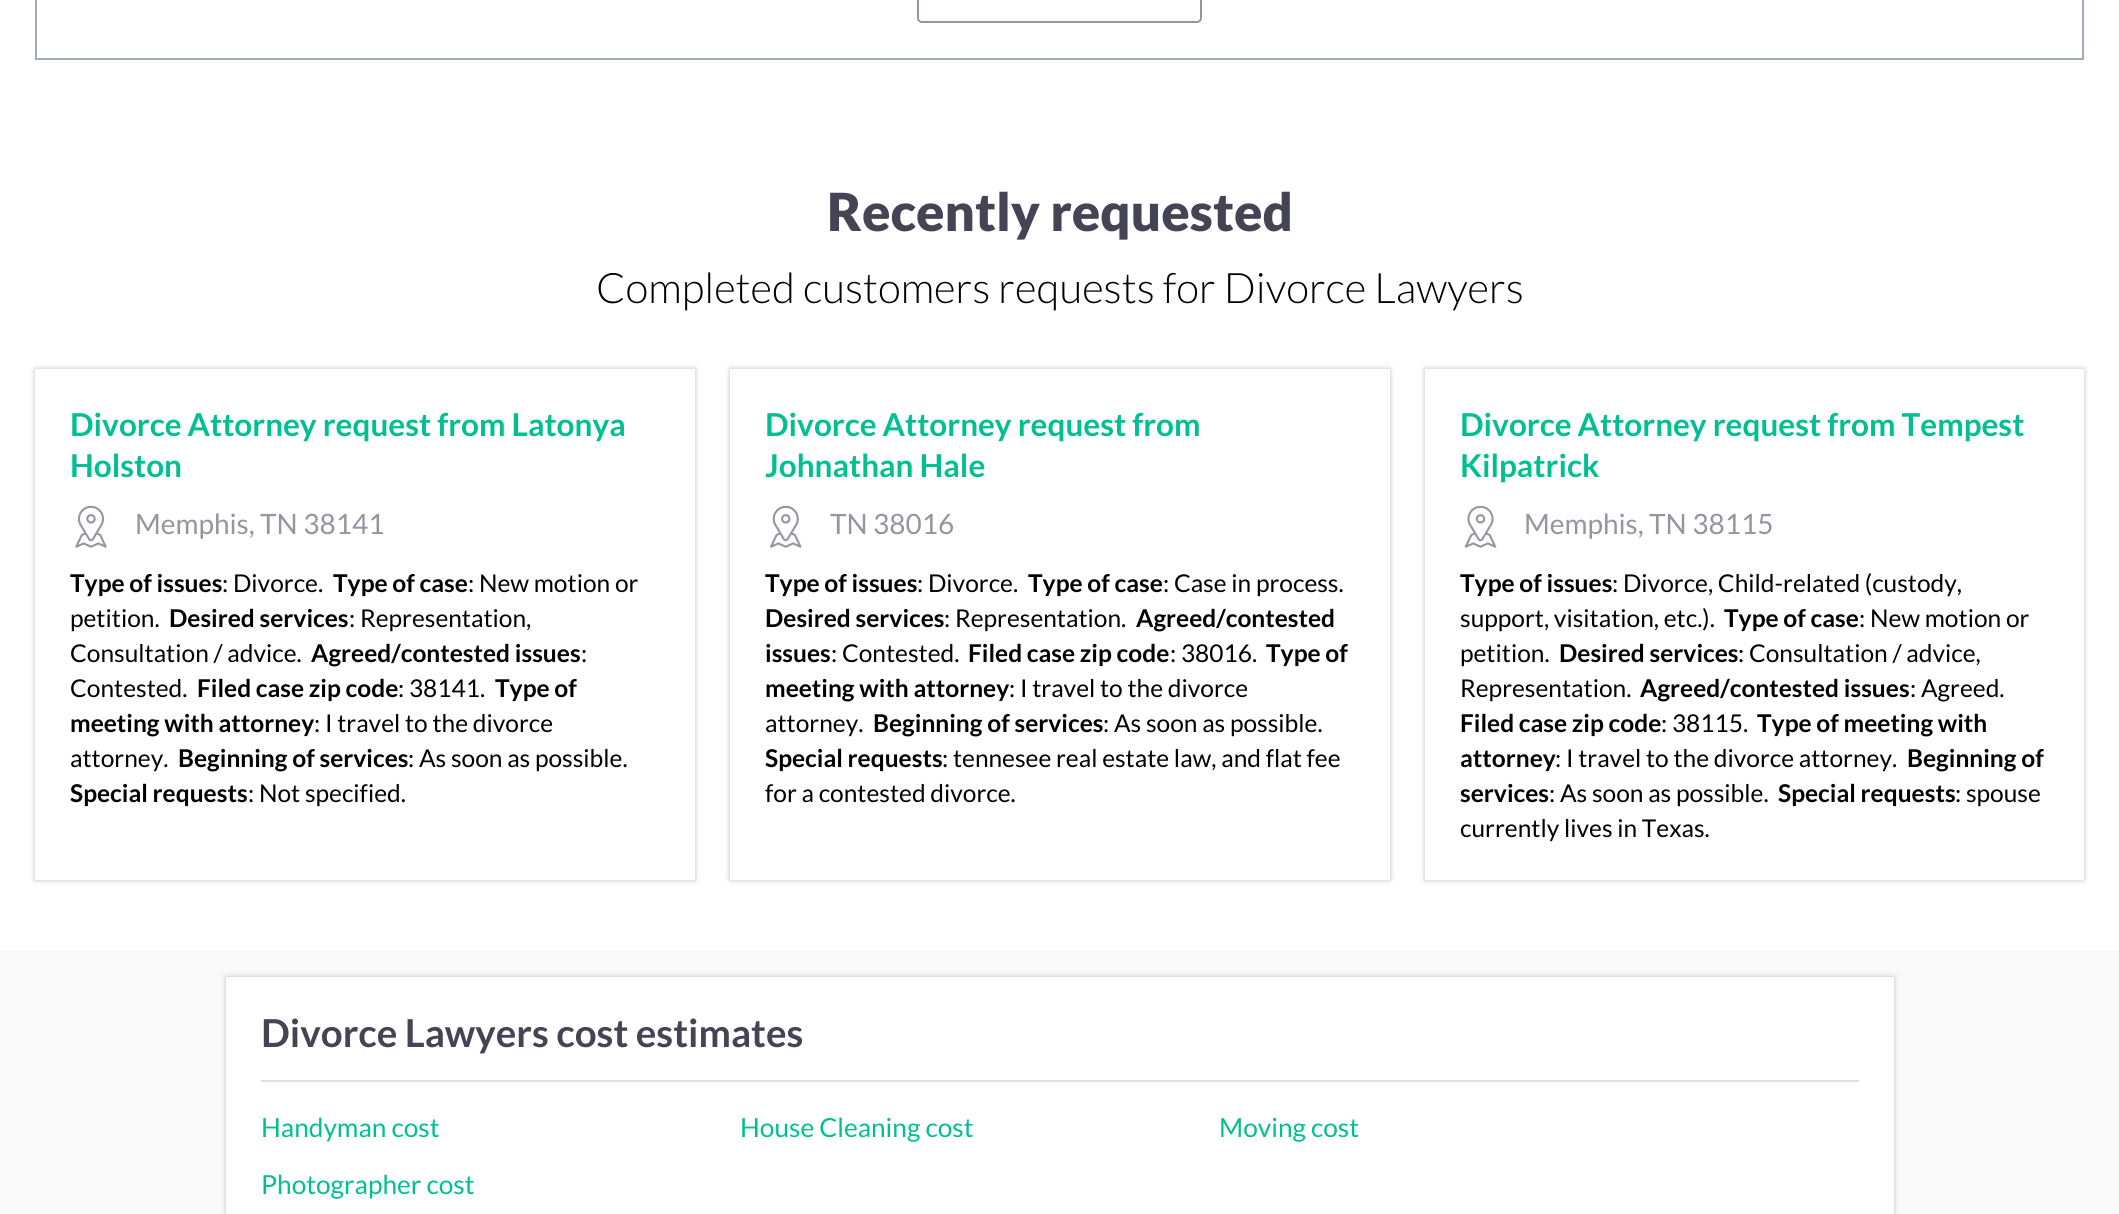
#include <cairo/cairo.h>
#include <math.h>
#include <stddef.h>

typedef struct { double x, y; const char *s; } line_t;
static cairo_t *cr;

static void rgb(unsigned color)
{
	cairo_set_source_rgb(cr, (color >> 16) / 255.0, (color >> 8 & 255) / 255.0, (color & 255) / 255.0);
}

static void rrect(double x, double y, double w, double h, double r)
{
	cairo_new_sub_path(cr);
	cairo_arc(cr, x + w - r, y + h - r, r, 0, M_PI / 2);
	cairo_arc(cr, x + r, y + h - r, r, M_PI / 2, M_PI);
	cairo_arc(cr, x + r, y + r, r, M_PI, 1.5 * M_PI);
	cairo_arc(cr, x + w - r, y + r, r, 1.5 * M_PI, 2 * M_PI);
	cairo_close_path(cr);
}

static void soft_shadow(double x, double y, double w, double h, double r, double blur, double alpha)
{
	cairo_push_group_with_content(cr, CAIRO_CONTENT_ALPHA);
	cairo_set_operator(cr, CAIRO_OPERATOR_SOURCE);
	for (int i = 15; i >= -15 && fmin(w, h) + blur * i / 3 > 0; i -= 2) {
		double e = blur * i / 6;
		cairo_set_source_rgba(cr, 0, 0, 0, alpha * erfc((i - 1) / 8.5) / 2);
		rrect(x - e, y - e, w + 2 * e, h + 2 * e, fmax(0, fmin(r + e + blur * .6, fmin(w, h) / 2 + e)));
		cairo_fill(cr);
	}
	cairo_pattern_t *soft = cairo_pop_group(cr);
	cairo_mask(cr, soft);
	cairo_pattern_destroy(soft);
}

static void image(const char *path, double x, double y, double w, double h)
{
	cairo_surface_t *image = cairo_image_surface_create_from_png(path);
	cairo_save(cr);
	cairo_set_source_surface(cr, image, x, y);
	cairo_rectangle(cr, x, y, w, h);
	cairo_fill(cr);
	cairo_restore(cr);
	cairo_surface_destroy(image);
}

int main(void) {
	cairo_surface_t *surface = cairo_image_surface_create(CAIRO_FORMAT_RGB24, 2119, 1214);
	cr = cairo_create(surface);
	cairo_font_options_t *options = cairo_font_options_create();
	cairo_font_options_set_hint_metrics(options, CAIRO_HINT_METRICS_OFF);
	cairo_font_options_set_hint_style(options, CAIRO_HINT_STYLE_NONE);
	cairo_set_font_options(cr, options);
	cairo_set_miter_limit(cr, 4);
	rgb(0xf9f9f9);
	cairo_paint(cr);
	rgb(0xffffff);
	cairo_rectangle(cr, 0, 0, 2119, 950);
	cairo_fill(cr);
	cairo_rectangle(cr, 36, -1, 2047, 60);
	rgb(0xa1a9be);
	cairo_stroke(cr);
	rrect(918, -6, 283, 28, 4);
	rgb(0x9595a2);
	cairo_stroke(cr);
	cairo_save(cr);
	cairo_set_fill_rule(cr, CAIRO_FILL_RULE_EVEN_ODD);
	cairo_new_path(cr);
	cairo_move_to(cr, 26, 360);
	cairo_line_to(cr, 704, 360);
	cairo_line_to(cr, 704, 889);
	cairo_line_to(cr, 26, 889);
	cairo_close_path(cr);
	cairo_move_to(cr, 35, 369);
	cairo_line_to(cr, 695, 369);
	cairo_line_to(cr, 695, 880);
	cairo_line_to(cr, 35, 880);
	cairo_close_path(cr);
	cairo_clip(cr);
	rgb(0xbdbdbd);
	soft_shadow(35, 369, 660, 511, 0, 2.5, 1);
	cairo_restore(cr);
	image("img/1.png", 75, 506, 32, 42);
	cairo_save(cr);
	cairo_set_fill_rule(cr, CAIRO_FILL_RULE_EVEN_ODD);
	cairo_new_path(cr);
	cairo_move_to(cr, 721, 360);
	cairo_line_to(cr, 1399, 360);
	cairo_line_to(cr, 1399, 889);
	cairo_line_to(cr, 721, 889);
	cairo_close_path(cr);
	cairo_move_to(cr, 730, 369);
	cairo_line_to(cr, 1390, 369);
	cairo_line_to(cr, 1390, 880);
	cairo_line_to(cr, 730, 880);
	cairo_close_path(cr);
	cairo_clip(cr);
	rgb(0xbdbdbd);
	soft_shadow(730, 369, 660, 511, 0, 2.5, 1);
	cairo_restore(cr);
	image("img/2.png", 770, 506, 32, 42);
	cairo_save(cr);
	cairo_set_fill_rule(cr, CAIRO_FILL_RULE_EVEN_ODD);
	cairo_new_path(cr);
	cairo_move_to(cr, 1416, 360);
	cairo_line_to(cr, 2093, 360);
	cairo_line_to(cr, 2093, 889);
	cairo_line_to(cr, 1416, 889);
	cairo_close_path(cr);
	cairo_move_to(cr, 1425, 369);
	cairo_line_to(cr, 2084, 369);
	cairo_line_to(cr, 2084, 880);
	cairo_line_to(cr, 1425, 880);
	cairo_close_path(cr);
	cairo_clip(cr);
	rgb(0xbdbdbd);
	soft_shadow(1425, 369, 659, 511, 0, 2.5, 1);
	cairo_restore(cr);
	image("img/3.png", 1464, 506, 33, 42);
	rgb(0xbdbdbd);
	soft_shadow(226, 977, 1668, 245, 0, 2.5, 1);
	rgb(0xffffff);
	cairo_rectangle(cr, 226, 977, 1668, 237);
	cairo_fill(cr);
	rgb(0xe0e0e0);
	cairo_rectangle(cr, 261, 1080, 1598, 2);
	cairo_fill(cr);
	cairo_select_font_face(cr, "Lato Black", CAIRO_FONT_SLANT_NORMAL, CAIRO_FONT_WEIGHT_NORMAL);
	cairo_set_font_size(cr, 52.5);
	rgb(0x444454);
	cairo_move_to(cr, 827, 231);
	cairo_show_text(cr, "Recently requested");
	cairo_select_font_face(cr, "Lato Light", CAIRO_FONT_SLANT_NORMAL, CAIRO_FONT_WEIGHT_NORMAL);
	cairo_set_font_size(cr, 42);
	rgb(0x000000);
	cairo_move_to(cr, 596, 303);
	cairo_show_text(cr, "Completed customers requests for Divorce Lawyers");
	cairo_select_font_face(cr, "Lato", CAIRO_FONT_SLANT_NORMAL, CAIRO_FONT_WEIGHT_BOLD);
	cairo_set_font_size(cr, 31.5);
	rgb(0x00c092);
	cairo_move_to(cr, 70, 436);
	cairo_show_text(cr, "Divorce Attorney request from Latonya");
	cairo_move_to(cr, 70, 477);
	cairo_show_text(cr, "Holston");
	cairo_select_font_face(cr, "Lato", CAIRO_FONT_SLANT_NORMAL, CAIRO_FONT_WEIGHT_NORMAL);
	cairo_set_font_size(cr, 28);
	rgb(0x9595a2);
	cairo_move_to(cr, 135, 534);
	cairo_show_text(cr, "Memphis, TN 38141");
	cairo_select_font_face(cr, "Lato", CAIRO_FONT_SLANT_NORMAL, CAIRO_FONT_WEIGHT_BOLD);
	cairo_set_font_size(cr, 24.5);
	rgb(0x000000);
	cairo_move_to(cr, 70, 592);
	cairo_show_text(cr, "Type of issues");
	cairo_select_font_face(cr, "Lato", CAIRO_FONT_SLANT_NORMAL, CAIRO_FONT_WEIGHT_NORMAL);
	cairo_move_to(cr, 222, 592);
	cairo_show_text(cr, ": Divorce.");
	cairo_select_font_face(cr, "Lato", CAIRO_FONT_SLANT_NORMAL, CAIRO_FONT_WEIGHT_BOLD);
	cairo_move_to(cr, 333, 592);
	cairo_show_text(cr, "Type of case");
	cairo_select_font_face(cr, "Lato", CAIRO_FONT_SLANT_NORMAL, CAIRO_FONT_WEIGHT_NORMAL);
	cairo_move_to(cr, 468, 592);
	cairo_show_text(cr, ": New motion or");
	cairo_move_to(cr, 70, 627);
	cairo_show_text(cr, "petition.");
	cairo_select_font_face(cr, "Lato", CAIRO_FONT_SLANT_NORMAL, CAIRO_FONT_WEIGHT_BOLD);
	cairo_move_to(cr, 169, 627);
	cairo_show_text(cr, "Desired services");
	cairo_select_font_face(cr, "Lato", CAIRO_FONT_SLANT_NORMAL, CAIRO_FONT_WEIGHT_NORMAL);
	cairo_move_to(cr, 349, 627);
	cairo_show_text(cr, ": Representation,");
	cairo_move_to(cr, 70, 662);
	cairo_show_text(cr, "Consultation / advice.");
	cairo_select_font_face(cr, "Lato", CAIRO_FONT_SLANT_NORMAL, CAIRO_FONT_WEIGHT_BOLD);
	cairo_move_to(cr, 311, 662);
	cairo_show_text(cr, "Agreed/contested issues");
	cairo_select_font_face(cr, "Lato", CAIRO_FONT_SLANT_NORMAL, CAIRO_FONT_WEIGHT_NORMAL);
	cairo_move_to(cr, 581, 662);
	cairo_show_text(cr, ":");
	cairo_move_to(cr, 70, 697);
	cairo_show_text(cr, "Contested.");
	cairo_select_font_face(cr, "Lato", CAIRO_FONT_SLANT_NORMAL, CAIRO_FONT_WEIGHT_BOLD);
	cairo_move_to(cr, 197, 697);
	cairo_show_text(cr, "Filed case zip code");
	cairo_select_font_face(cr, "Lato", CAIRO_FONT_SLANT_NORMAL, CAIRO_FONT_WEIGHT_NORMAL);
	cairo_move_to(cr, 398, 697);
	cairo_show_text(cr, ": 38141.");
	cairo_select_font_face(cr, "Lato", CAIRO_FONT_SLANT_NORMAL, CAIRO_FONT_WEIGHT_BOLD);
	cairo_move_to(cr, 495, 697);
	cairo_show_text(cr, "Type of");
	cairo_move_to(cr, 70, 732);
	cairo_show_text(cr, "meeting with attorney");
	cairo_select_font_face(cr, "Lato", CAIRO_FONT_SLANT_NORMAL, CAIRO_FONT_WEIGHT_NORMAL);
	cairo_move_to(cr, 314, 732);
	cairo_show_text(cr, ": I travel to the divorce");
	cairo_move_to(cr, 70, 767);
	cairo_show_text(cr, "attorney.");
	cairo_select_font_face(cr, "Lato", CAIRO_FONT_SLANT_NORMAL, CAIRO_FONT_WEIGHT_BOLD);
	cairo_move_to(cr, 178, 767);
	cairo_show_text(cr, "Beginning of services");
	cairo_select_font_face(cr, "Lato", CAIRO_FONT_SLANT_NORMAL, CAIRO_FONT_WEIGHT_NORMAL);
	cairo_move_to(cr, 408, 767);
	cairo_show_text(cr, ": As soon as possible.");
	cairo_select_font_face(cr, "Lato", CAIRO_FONT_SLANT_NORMAL, CAIRO_FONT_WEIGHT_BOLD);
	cairo_move_to(cr, 70, 802);
	cairo_show_text(cr, "Special requests");
	cairo_select_font_face(cr, "Lato", CAIRO_FONT_SLANT_NORMAL, CAIRO_FONT_WEIGHT_NORMAL);
	cairo_move_to(cr, 248, 802);
	cairo_show_text(cr, ": Not specified.");
	cairo_select_font_face(cr, "Lato", CAIRO_FONT_SLANT_NORMAL, CAIRO_FONT_WEIGHT_BOLD);
	cairo_set_font_size(cr, 31.5);
	rgb(0x00c092);
	cairo_move_to(cr, 765, 436);
	cairo_show_text(cr, "Divorce Attorney request from");
	cairo_move_to(cr, 765, 477);
	cairo_show_text(cr, "Johnathan Hale");
	cairo_select_font_face(cr, "Lato", CAIRO_FONT_SLANT_NORMAL, CAIRO_FONT_WEIGHT_NORMAL);
	cairo_set_font_size(cr, 28);
	rgb(0x9595a2);
	cairo_move_to(cr, 830, 534);
	cairo_show_text(cr, "TN 38016");
	cairo_select_font_face(cr, "Lato", CAIRO_FONT_SLANT_NORMAL, CAIRO_FONT_WEIGHT_BOLD);
	cairo_set_font_size(cr, 24.5);
	rgb(0x000000);
	cairo_move_to(cr, 765, 592);
	cairo_show_text(cr, "Type of issues");
	cairo_select_font_face(cr, "Lato", CAIRO_FONT_SLANT_NORMAL, CAIRO_FONT_WEIGHT_NORMAL);
	cairo_move_to(cr, 917, 592);
	cairo_show_text(cr, ": Divorce.");
	cairo_select_font_face(cr, "Lato", CAIRO_FONT_SLANT_NORMAL, CAIRO_FONT_WEIGHT_BOLD);
	cairo_move_to(cr, 1028, 592);
	cairo_show_text(cr, "Type of case");
	cairo_select_font_face(cr, "Lato", CAIRO_FONT_SLANT_NORMAL, CAIRO_FONT_WEIGHT_NORMAL);
	cairo_move_to(cr, 1163, 592);
	cairo_show_text(cr, ": Case in process.");
	cairo_select_font_face(cr, "Lato", CAIRO_FONT_SLANT_NORMAL, CAIRO_FONT_WEIGHT_BOLD);
	cairo_move_to(cr, 765, 627);
	cairo_show_text(cr, "Desired services");
	cairo_select_font_face(cr, "Lato", CAIRO_FONT_SLANT_NORMAL, CAIRO_FONT_WEIGHT_NORMAL);
	cairo_move_to(cr, 944, 627);
	cairo_show_text(cr, ": Representation.");
	cairo_select_font_face(cr, "Lato", CAIRO_FONT_SLANT_NORMAL, CAIRO_FONT_WEIGHT_BOLD);
	cairo_move_to(cr, 1136, 627);
	cairo_show_text(cr, "Agreed/contested");
	cairo_move_to(cr, 765, 662);
	cairo_show_text(cr, "issues");
	cairo_select_font_face(cr, "Lato", CAIRO_FONT_SLANT_NORMAL, CAIRO_FONT_WEIGHT_NORMAL);
	cairo_move_to(cr, 831, 662);
	cairo_show_text(cr, ": Contested.");
	cairo_select_font_face(cr, "Lato", CAIRO_FONT_SLANT_NORMAL, CAIRO_FONT_WEIGHT_BOLD);
	cairo_move_to(cr, 968, 662);
	cairo_show_text(cr, "Filed case zip code");
	cairo_select_font_face(cr, "Lato", CAIRO_FONT_SLANT_NORMAL, CAIRO_FONT_WEIGHT_NORMAL);
	cairo_move_to(cr, 1170, 662);
	cairo_show_text(cr, ": 38016.");
	cairo_select_font_face(cr, "Lato", CAIRO_FONT_SLANT_NORMAL, CAIRO_FONT_WEIGHT_BOLD);
	cairo_move_to(cr, 1266, 662);
	cairo_show_text(cr, "Type of");
	cairo_move_to(cr, 765, 697);
	cairo_show_text(cr, "meeting with attorney");
	cairo_select_font_face(cr, "Lato", CAIRO_FONT_SLANT_NORMAL, CAIRO_FONT_WEIGHT_NORMAL);
	cairo_move_to(cr, 1009, 697);
	cairo_show_text(cr, ": I travel to the divorce");
	cairo_move_to(cr, 765, 732);
	cairo_show_text(cr, "attorney.");
	cairo_select_font_face(cr, "Lato", CAIRO_FONT_SLANT_NORMAL, CAIRO_FONT_WEIGHT_BOLD);
	cairo_move_to(cr, 873, 732);
	cairo_show_text(cr, "Beginning of services");
	cairo_select_font_face(cr, "Lato", CAIRO_FONT_SLANT_NORMAL, CAIRO_FONT_WEIGHT_NORMAL);
	cairo_move_to(cr, 1103, 732);
	cairo_show_text(cr, ": As soon as possible.");
	cairo_select_font_face(cr, "Lato", CAIRO_FONT_SLANT_NORMAL, CAIRO_FONT_WEIGHT_BOLD);
	cairo_move_to(cr, 765, 767);
	cairo_show_text(cr, "Special requests");
	cairo_select_font_face(cr, "Lato", CAIRO_FONT_SLANT_NORMAL, CAIRO_FONT_WEIGHT_NORMAL);
	cairo_move_to(cr, 942, 767);
	cairo_show_text(cr, ": tennesee real estate law, and flat fee");
	cairo_move_to(cr, 765, 802);
	cairo_show_text(cr, "for a contested divorce.");
	cairo_select_font_face(cr, "Lato", CAIRO_FONT_SLANT_NORMAL, CAIRO_FONT_WEIGHT_BOLD);
	cairo_set_font_size(cr, 31.5);
	rgb(0x00c092);
	cairo_move_to(cr, 1460, 436);
	cairo_show_text(cr, "Divorce Attorney request from Tempest");
	cairo_move_to(cr, 1460, 477);
	cairo_show_text(cr, "Kilpatrick");
	cairo_select_font_face(cr, "Lato", CAIRO_FONT_SLANT_NORMAL, CAIRO_FONT_WEIGHT_NORMAL);
	cairo_set_font_size(cr, 28);
	rgb(0x9595a2);
	cairo_move_to(cr, 1524, 534);
	cairo_show_text(cr, "Memphis, TN 38115");
	cairo_select_font_face(cr, "Lato", CAIRO_FONT_SLANT_NORMAL, CAIRO_FONT_WEIGHT_BOLD);
	cairo_set_font_size(cr, 24.5);
	rgb(0x000000);
	cairo_move_to(cr, 1460, 592);
	cairo_show_text(cr, "Type of issues");
	cairo_select_font_face(cr, "Lato", CAIRO_FONT_SLANT_NORMAL, CAIRO_FONT_WEIGHT_NORMAL);
	cairo_move_to(cr, 1612, 592);
	cairo_show_text(cr, ": Divorce, Child-related (custody,");
	cairo_move_to(cr, 1460, 627);
	cairo_show_text(cr, "support, visitation, etc.).");
	cairo_select_font_face(cr, "Lato", CAIRO_FONT_SLANT_NORMAL, CAIRO_FONT_WEIGHT_BOLD);
	cairo_move_to(cr, 1724, 627);
	cairo_show_text(cr, "Type of case");
	cairo_select_font_face(cr, "Lato", CAIRO_FONT_SLANT_NORMAL, CAIRO_FONT_WEIGHT_NORMAL);
	cairo_move_to(cr, 1859, 627);
	cairo_show_text(cr, ": New motion or");
	cairo_move_to(cr, 1460, 662);
	cairo_show_text(cr, "petition.");
	cairo_select_font_face(cr, "Lato", CAIRO_FONT_SLANT_NORMAL, CAIRO_FONT_WEIGHT_BOLD);
	cairo_move_to(cr, 1559, 662);
	cairo_show_text(cr, "Desired services");
	cairo_select_font_face(cr, "Lato", CAIRO_FONT_SLANT_NORMAL, CAIRO_FONT_WEIGHT_NORMAL);
	cairo_move_to(cr, 1738, 662);
	cairo_show_text(cr, ": Consultation / advice,");
	cairo_move_to(cr, 1460, 697);
	cairo_show_text(cr, "Representation.");
	cairo_select_font_face(cr, "Lato", CAIRO_FONT_SLANT_NORMAL, CAIRO_FONT_WEIGHT_BOLD);
	cairo_move_to(cr, 1640, 697);
	cairo_show_text(cr, "Agreed/contested issues");
	cairo_select_font_face(cr, "Lato", CAIRO_FONT_SLANT_NORMAL, CAIRO_FONT_WEIGHT_NORMAL);
	cairo_move_to(cr, 1910, 697);
	cairo_show_text(cr, ": Agreed.");
	cairo_select_font_face(cr, "Lato", CAIRO_FONT_SLANT_NORMAL, CAIRO_FONT_WEIGHT_BOLD);
	cairo_move_to(cr, 1460, 732);
	cairo_show_text(cr, "Filed case zip code");
	cairo_select_font_face(cr, "Lato", CAIRO_FONT_SLANT_NORMAL, CAIRO_FONT_WEIGHT_NORMAL);
	cairo_move_to(cr, 1661, 732);
	cairo_show_text(cr, ": 38115.");
	cairo_select_font_face(cr, "Lato", CAIRO_FONT_SLANT_NORMAL, CAIRO_FONT_WEIGHT_BOLD);
	cairo_move_to(cr, 1757, 732);
	cairo_show_text(cr, "Type of meeting with");
	cairo_move_to(cr, 1460, 767);
	cairo_show_text(cr, "attorney");
	cairo_select_font_face(cr, "Lato", CAIRO_FONT_SLANT_NORMAL, CAIRO_FONT_WEIGHT_NORMAL);
	cairo_move_to(cr, 1555, 767);
	cairo_show_text(cr, ": I travel to the divorce attorney.");
	cairo_select_font_face(cr, "Lato", CAIRO_FONT_SLANT_NORMAL, CAIRO_FONT_WEIGHT_BOLD);
	cairo_move_to(cr, 1907, 767);
	cairo_show_text(cr, "Beginning of");
	cairo_move_to(cr, 1460, 802);
	cairo_show_text(cr, "services");
	cairo_select_font_face(cr, "Lato", CAIRO_FONT_SLANT_NORMAL, CAIRO_FONT_WEIGHT_NORMAL);
	cairo_move_to(cr, 1549, 802);
	cairo_show_text(cr, ": As soon as possible.");
	cairo_select_font_face(cr, "Lato", CAIRO_FONT_SLANT_NORMAL, CAIRO_FONT_WEIGHT_BOLD);
	cairo_move_to(cr, 1778, 802);
	cairo_show_text(cr, "Special requests");
	cairo_select_font_face(cr, "Lato", CAIRO_FONT_SLANT_NORMAL, CAIRO_FONT_WEIGHT_NORMAL);
	cairo_move_to(cr, 1955, 802);
	cairo_show_text(cr, ": spouse");
	cairo_move_to(cr, 1460, 837);
	cairo_show_text(cr, "currently lives in Texas.");
	cairo_select_font_face(cr, "Lato", CAIRO_FONT_SLANT_NORMAL, CAIRO_FONT_WEIGHT_BOLD);
	cairo_set_font_size(cr, 38.5);
	rgb(0x444454);
	cairo_move_to(cr, 261, 1047);
	cairo_show_text(cr, "Divorce Lawyers cost estimates");
	cairo_select_font_face(cr, "Lato", CAIRO_FONT_SLANT_NORMAL, CAIRO_FONT_WEIGHT_NORMAL);
	cairo_set_font_size(cr, 26.25);
	rgb(0x00c092);
	{
		static const line_t items[] = {
			{261, 1137, "Handyman cost"},
			{740, 1137, "House Cleaning cost"},
			{1219, 1137, "Moving cost"},
			{261, 1194, "Photographer cost"},
		};
		for (size_t i = 0; i < sizeof items / sizeof *items; i++) {
			cairo_move_to(cr, items[i].x, items[i].y);
			cairo_show_text(cr, items[i].s);
		}
	}
	cairo_surface_write_to_png(surface, "page.png");
	cairo_font_options_destroy(options);
	cairo_destroy(cr);
	cairo_surface_destroy(surface);
	return 0;
}
